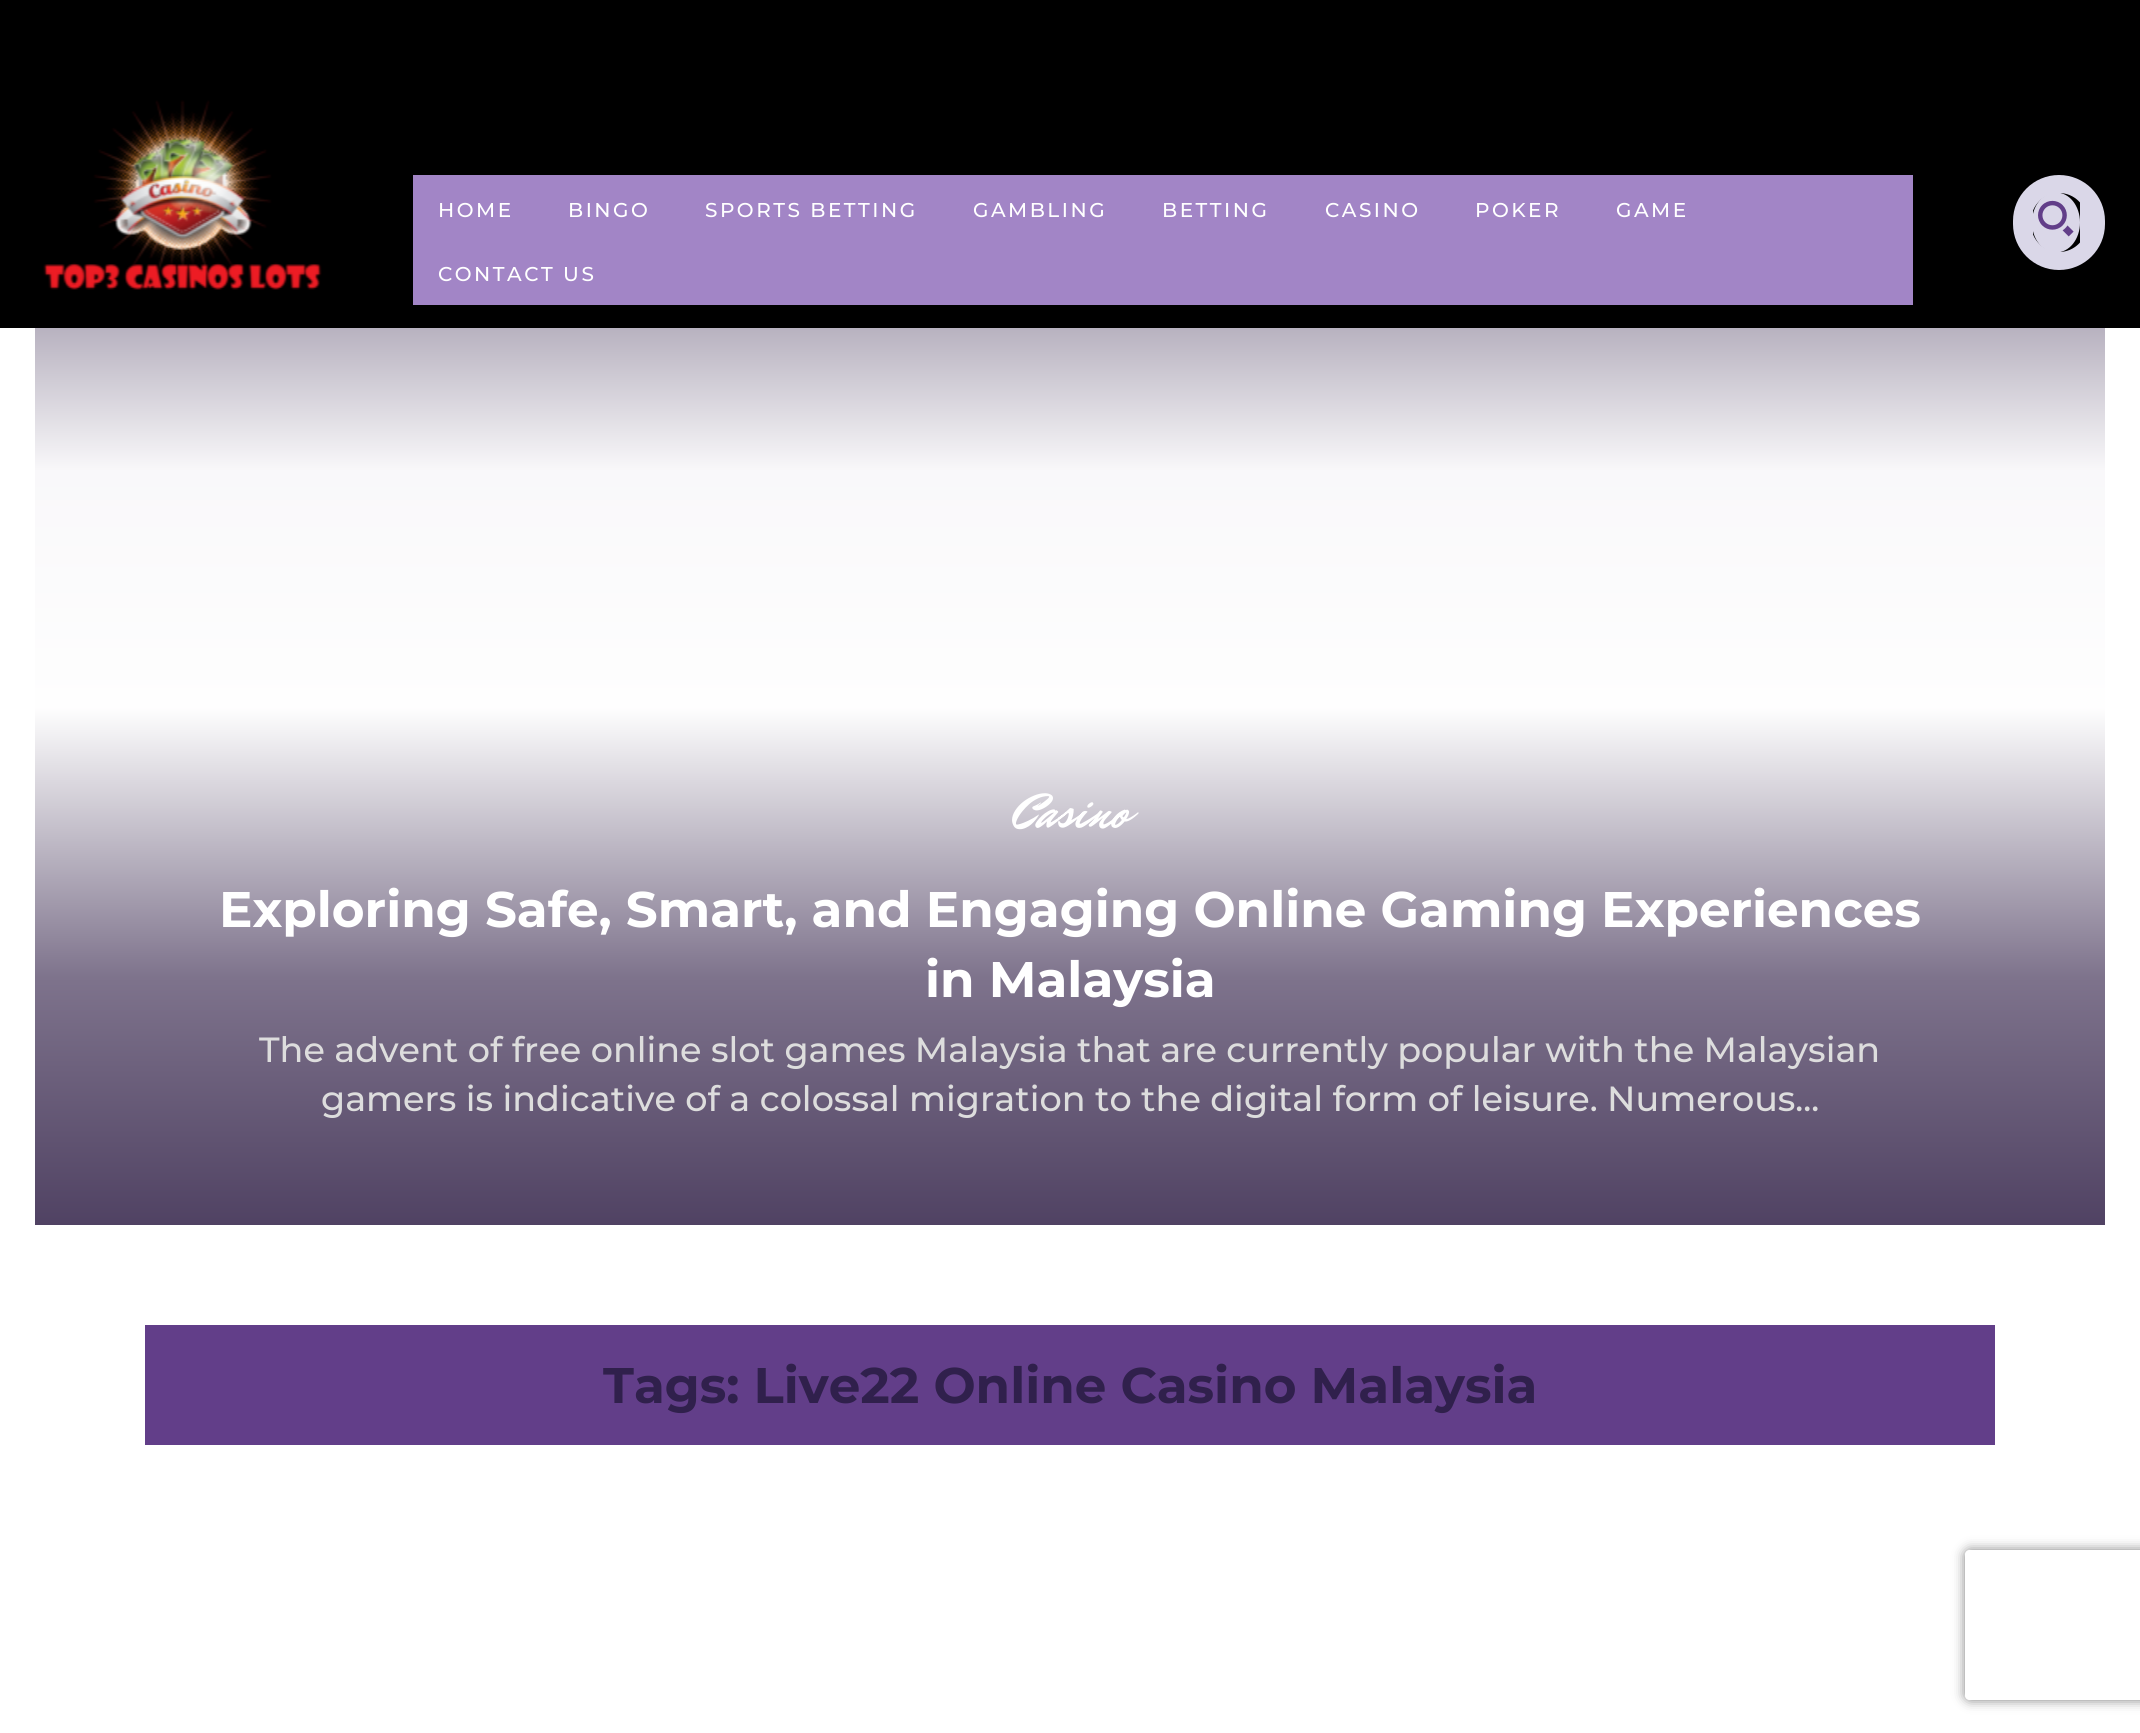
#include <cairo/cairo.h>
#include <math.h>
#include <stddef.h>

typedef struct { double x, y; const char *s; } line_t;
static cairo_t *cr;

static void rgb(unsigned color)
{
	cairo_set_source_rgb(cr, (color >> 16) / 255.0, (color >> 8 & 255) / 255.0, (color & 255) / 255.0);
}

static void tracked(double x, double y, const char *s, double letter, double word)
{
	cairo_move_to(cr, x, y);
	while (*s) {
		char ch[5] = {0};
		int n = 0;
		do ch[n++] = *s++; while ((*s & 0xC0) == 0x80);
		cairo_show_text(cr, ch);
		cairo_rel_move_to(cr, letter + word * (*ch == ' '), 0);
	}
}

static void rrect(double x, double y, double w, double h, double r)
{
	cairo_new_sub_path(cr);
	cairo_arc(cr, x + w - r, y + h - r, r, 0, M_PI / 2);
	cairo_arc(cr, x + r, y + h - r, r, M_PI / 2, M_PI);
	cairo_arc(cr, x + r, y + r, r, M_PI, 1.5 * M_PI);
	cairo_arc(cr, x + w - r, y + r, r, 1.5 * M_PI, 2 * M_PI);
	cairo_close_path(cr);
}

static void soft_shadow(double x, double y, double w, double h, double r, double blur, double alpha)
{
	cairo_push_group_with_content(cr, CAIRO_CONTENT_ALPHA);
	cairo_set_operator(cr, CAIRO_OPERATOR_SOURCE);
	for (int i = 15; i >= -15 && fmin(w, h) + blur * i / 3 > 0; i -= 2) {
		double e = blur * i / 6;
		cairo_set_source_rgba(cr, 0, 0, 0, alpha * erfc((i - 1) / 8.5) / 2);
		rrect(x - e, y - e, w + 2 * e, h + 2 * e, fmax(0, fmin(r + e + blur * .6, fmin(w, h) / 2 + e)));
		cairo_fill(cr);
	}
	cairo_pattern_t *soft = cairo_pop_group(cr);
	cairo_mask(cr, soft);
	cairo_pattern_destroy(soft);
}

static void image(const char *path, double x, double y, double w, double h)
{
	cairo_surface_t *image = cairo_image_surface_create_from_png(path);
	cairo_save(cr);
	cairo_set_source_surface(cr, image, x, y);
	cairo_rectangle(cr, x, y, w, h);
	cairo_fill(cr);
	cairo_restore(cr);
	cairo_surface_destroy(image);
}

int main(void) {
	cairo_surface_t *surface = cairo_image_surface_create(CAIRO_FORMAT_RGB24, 2140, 1733);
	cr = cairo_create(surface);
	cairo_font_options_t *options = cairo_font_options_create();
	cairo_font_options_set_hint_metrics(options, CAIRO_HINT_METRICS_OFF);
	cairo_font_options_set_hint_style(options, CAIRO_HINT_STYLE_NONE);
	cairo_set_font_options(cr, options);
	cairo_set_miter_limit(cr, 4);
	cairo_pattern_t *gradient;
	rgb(0xffffff);
	cairo_paint(cr);
	rgb(0x000000);
	cairo_rectangle(cr, 0, 0, 2140, 328);
	cairo_fill(cr);
	image("img/1.png", 43, 100, 279, 190);
	rgb(0xa285c6);
	cairo_rectangle(cr, 413, 175, 1500, 130);
	cairo_fill(cr);
	rrect(2022, 184, 74, 77, 37);
	rgb(0xdad7e8);
	cairo_set_line_width(cr, 18);
	cairo_stroke(cr);
	cairo_rectangle(cr, 2080, 200, 7, 48);
	cairo_fill(cr);
	cairo_rectangle(cr, 2031, 210, 2, 25);
	cairo_fill(cr);
	cairo_new_path(cr);
	cairo_move_to(cr, 2056, 192.5);
	cairo_curve_to(cr, 2069.5, 192.5, 2080, 206, 2080, 222.5);
	cairo_curve_to(cr, 2080, 239, 2069.5, 252.5, 2056, 252.5);
	cairo_curve_to(cr, 2042.5, 252.5, 2032, 239, 2032, 222.5);
	cairo_curve_to(cr, 2032, 206, 2042.5, 192.5, 2056, 192.5);
	cairo_close_path(cr);
	cairo_fill(cr);
	image("img/2.png", 2038, 200, 36, 37);
	gradient = cairo_pattern_create_linear(1070, 1225, 1070, 100);
	cairo_pattern_add_color_stop_rgba(gradient, 0, 0.314, 0.259, 0.388, 1);
	cairo_pattern_add_color_stop_rgba(gradient, 0.22, 0.494, 0.451, 0.549, 1);
	cairo_pattern_add_color_stop_rgba(gradient, 0.46, 0.996, 0.996, 0.996, 1);
	cairo_pattern_add_color_stop_rgba(gradient, 0.67, 0.976, 0.973, 0.98, 1);
	cairo_pattern_add_color_stop_rgba(gradient, 1, 0.314, 0.259, 0.388, 1);
	cairo_pattern_add_color_stop_rgba(gradient, 1, 0.988, 0.988, 0.992, 1);
	cairo_pattern_add_color_stop_rgba(gradient, 1, 0.341, 0.29, 0.412, 1);
	cairo_set_source(cr, gradient);
	cairo_pattern_destroy(gradient);
	cairo_rectangle(cr, 35, 328, 2070, 897);
	cairo_fill(cr);
	rgb(0x623e89);
	cairo_rectangle(cr, 145, 1325, 1850, 120);
	cairo_fill(cr);
	cairo_save(cr);
	cairo_set_fill_rule(cr, CAIRO_FILL_RULE_EVEN_ODD);
	cairo_new_path(cr);
	cairo_move_to(cr, 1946, 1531);
	cairo_line_to(cr, 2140, 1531);
	cairo_line_to(cr, 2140, 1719);
	cairo_line_to(cr, 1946, 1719);
	cairo_close_path(cr);
	cairo_move_to(cr, 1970, 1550);
	cairo_line_to(cr, 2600, 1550);
	cairo_curve_to(cr, 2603, 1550, 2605, 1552, 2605, 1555);
	cairo_line_to(cr, 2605, 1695);
	cairo_curve_to(cr, 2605, 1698, 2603, 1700, 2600, 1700);
	cairo_line_to(cr, 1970, 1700);
	cairo_curve_to(cr, 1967, 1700, 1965, 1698, 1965, 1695);
	cairo_line_to(cr, 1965, 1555);
	cairo_curve_to(cr, 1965, 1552, 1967, 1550, 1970, 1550);
	cairo_close_path(cr);
	cairo_clip(cr);
	rgb(0x808080);
	soft_shadow(1965, 1550, 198, 150, 5, 6, 1);
	cairo_restore(cr);
	cairo_select_font_face(cr, "Montserrat Medium", CAIRO_FONT_SLANT_NORMAL, CAIRO_FONT_WEIGHT_NORMAL);
	cairo_set_font_size(cr, 20);
	rgb(0xffffff);
	{
		static const line_t items[] = {
			{438, 217, "HOME"},
			{568, 217, "BINGO"},
			{705, 217, "SPORTS BETTING"},
			{973, 217, "GAMBLING"},
			{1162, 217, "BETTING"},
			{1325, 217, "CASINO"},
			{1475, 217, "POKER"},
			{1616, 217, "GAME"},
			{438, 281, "CONTACT US"},
		};
		for (size_t i = 0; i < sizeof items / sizeof *items; i++) {
			tracked(items[i].x, items[i].y, items[i].s, 2.5, 0);
		}
	}
	cairo_select_font_face(cr, "Mr Dafoe", CAIRO_FONT_SLANT_NORMAL, CAIRO_FONT_WEIGHT_NORMAL);
	cairo_set_font_size(cr, 50);
	cairo_move_to(cr, 1012, 827);
	cairo_show_text(cr, "Casino");
	cairo_select_font_face(cr, "Montserrat", CAIRO_FONT_SLANT_NORMAL, CAIRO_FONT_WEIGHT_BOLD);
	cairo_move_to(cr, 219, 927);
	cairo_show_text(cr, "Exploring Safe, Smart, and Engaging Online Gaming Experiences");
	cairo_move_to(cr, 925, 997);
	cairo_show_text(cr, "in Malaysia");
	cairo_select_font_face(cr, "Montserrat Medium", CAIRO_FONT_SLANT_NORMAL, CAIRO_FONT_WEIGHT_NORMAL);
	cairo_set_font_size(cr, 35);
	rgb(0xdddddd);
	cairo_move_to(cr, 259, 1062);
	cairo_show_text(cr, "The advent of free online slot games Malaysia that are currently popular with the Malaysian");
	cairo_move_to(cr, 321, 1111);
	cairo_show_text(cr, "gamers is indicative of a colossal migration to the digital form of leisure. Numerous...");
	cairo_select_font_face(cr, "Montserrat", CAIRO_FONT_SLANT_NORMAL, CAIRO_FONT_WEIGHT_BOLD);
	cairo_set_font_size(cr, 50);
	rgb(0x30204c);
	cairo_move_to(cr, 603, 1403);
	cairo_show_text(cr, "Tags: Live22 Online Casino Malaysia");
	cairo_surface_write_to_png(surface, "page.png");
	cairo_font_options_destroy(options);
	cairo_destroy(cr);
	cairo_surface_destroy(surface);
	return 0;
}
